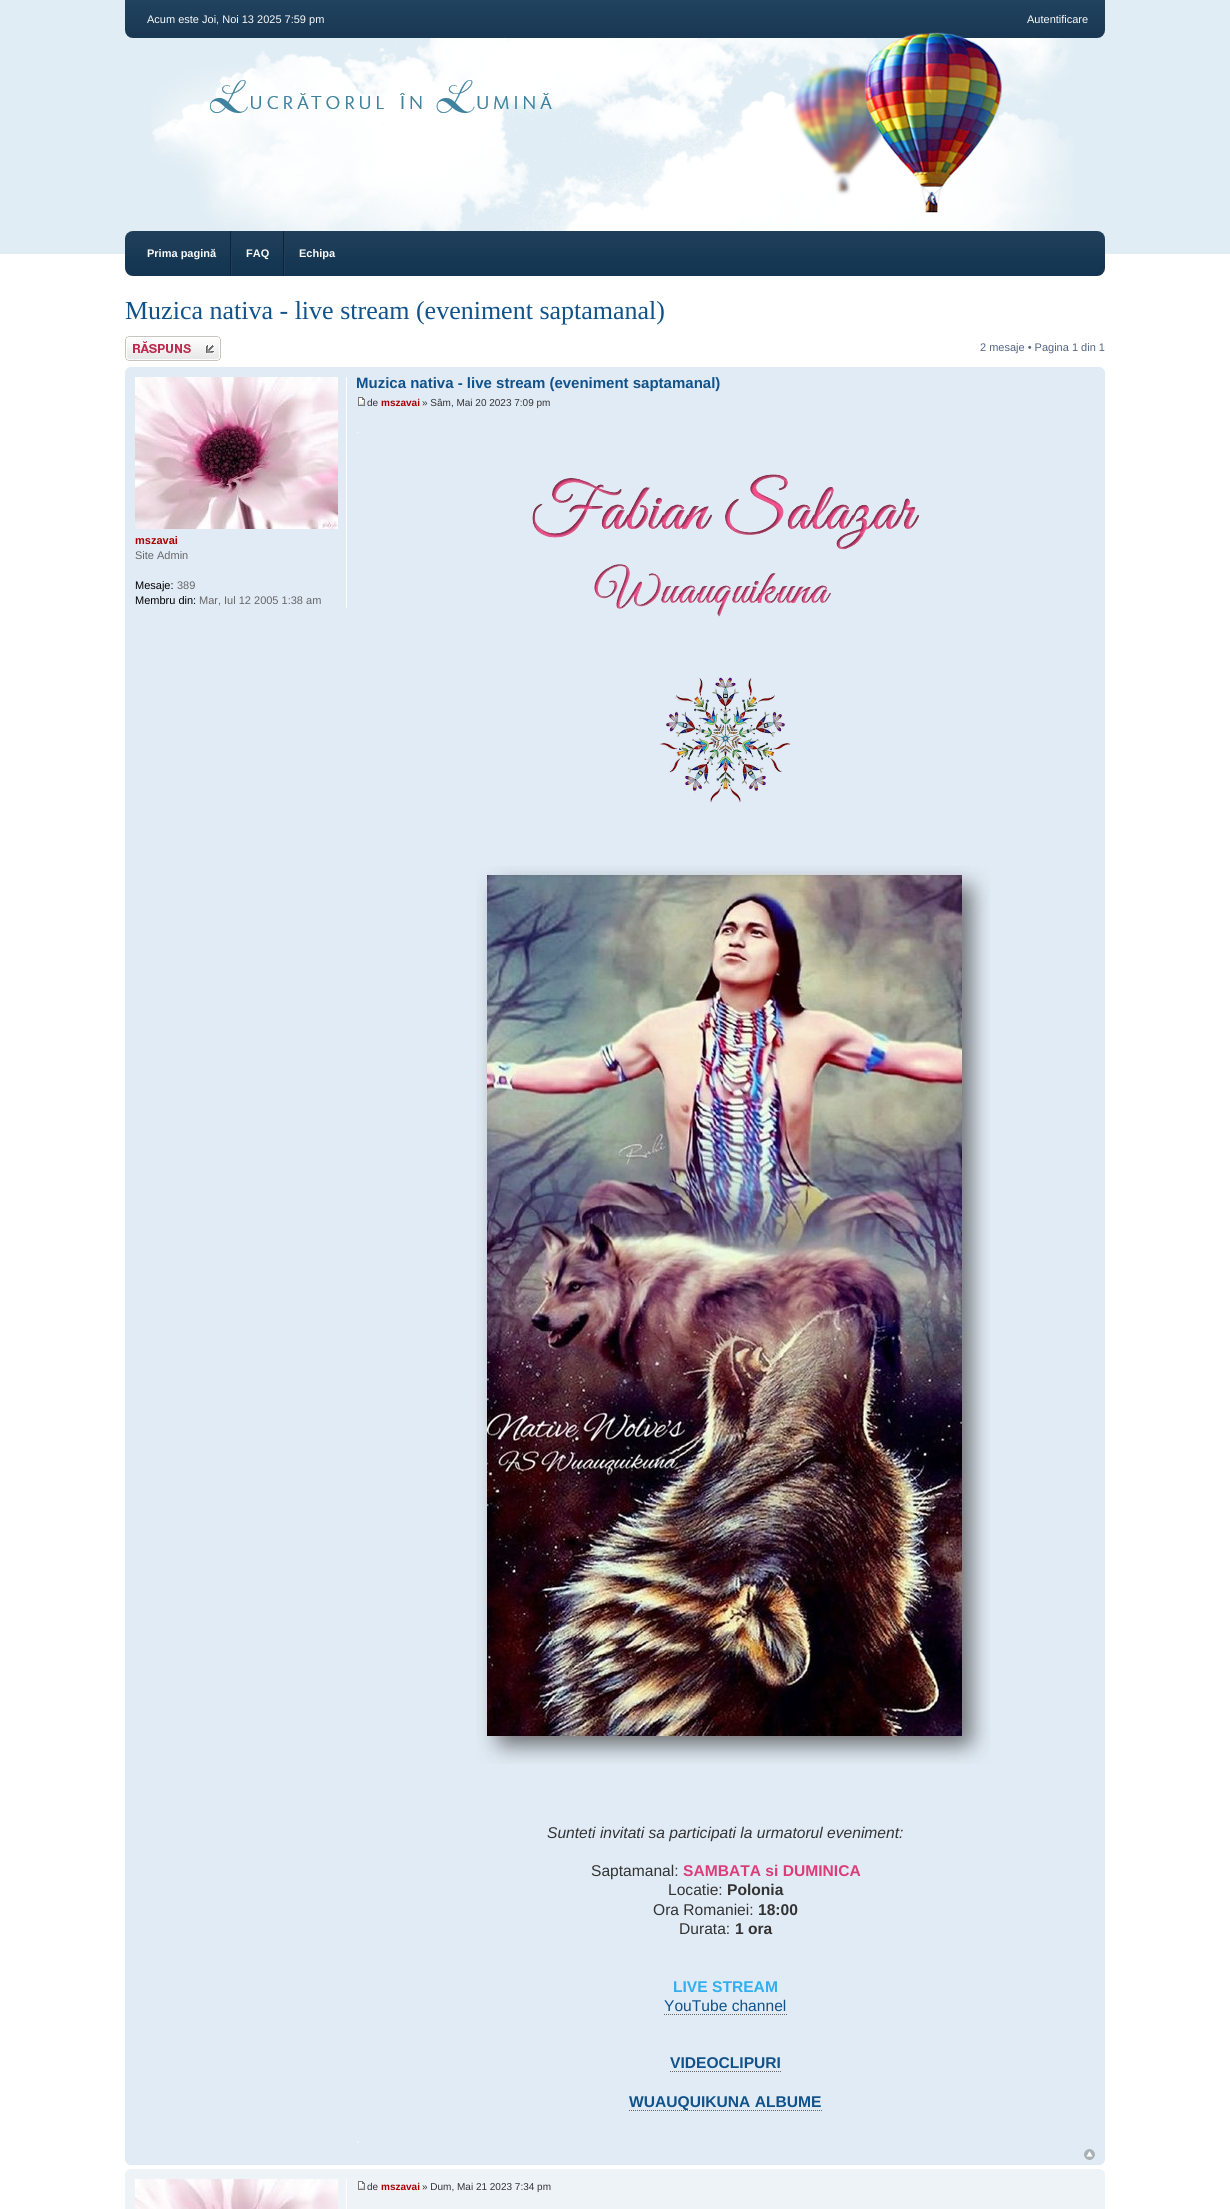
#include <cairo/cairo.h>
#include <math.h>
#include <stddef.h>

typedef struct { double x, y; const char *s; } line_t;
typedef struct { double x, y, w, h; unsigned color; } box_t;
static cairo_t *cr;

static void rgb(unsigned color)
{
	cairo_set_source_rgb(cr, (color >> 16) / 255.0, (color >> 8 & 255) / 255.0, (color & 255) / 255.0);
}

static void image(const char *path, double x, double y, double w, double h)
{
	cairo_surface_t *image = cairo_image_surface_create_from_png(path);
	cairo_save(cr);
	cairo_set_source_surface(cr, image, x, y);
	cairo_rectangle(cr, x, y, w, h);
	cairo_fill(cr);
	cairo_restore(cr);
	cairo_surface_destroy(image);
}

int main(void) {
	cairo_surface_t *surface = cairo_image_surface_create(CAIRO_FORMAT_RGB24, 1230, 2209);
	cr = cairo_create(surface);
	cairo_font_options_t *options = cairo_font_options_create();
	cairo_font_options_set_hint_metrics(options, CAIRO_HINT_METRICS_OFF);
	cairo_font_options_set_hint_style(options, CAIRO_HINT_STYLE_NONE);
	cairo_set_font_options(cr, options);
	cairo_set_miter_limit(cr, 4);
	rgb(0xffffff);
	cairo_paint(cr);
	rgb(0xe0edf4);
	cairo_rectangle(cr, 0, 0, 1230, 254);
	cairo_fill(cr);
	image("img/1.png", 125, 0, 980, 38);
	image("img/2.png", 151, 32, 923, 199);
	image("img/3.png", 125, 231, 980, 45);
	{
		static const box_t items[] = {
			{230, 231, 1, 45, 0x102435},
			{283, 231, 1, 45, 0x102435},
			{231, 231, 1, 45, 0x1c3e5c},
			{284, 231, 1, 45, 0x1c3e5c},
		};
		for (size_t i = 0; i < sizeof items / sizeof *items; i++) {
			rgb(items[i].color);
			cairo_rectangle(cr, items[i].x, items[i].y, items[i].w, items[i].h);
			cairo_fill(cr);
		}
	}
	image("img/4.png", 125, 336, 96, 25);
	rgb(0xe1ebf5);
	cairo_rectangle(cr, 125, 367, 980, 1798);
	cairo_fill(cr);
	image("img/5.png", 125, 367, 5, 5);
	image("img/6.png", 1100, 367, 5, 5);
	rgb(0xffffff);
	cairo_rectangle(cr, 346, 377, 1, 231);
	cairo_fill(cr);
	image("img/7.png", 135, 377, 203, 152);
	image("img/8.png", 358, 397, 7, 9);
	image("img/9.png", 532, 474, 388, 143);
	image("img/10.png", 659, 677, 132, 126);
	image("img/11.png", 476, 866, 514, 898);
	cairo_new_path(cr);
	cairo_move_to(cr, 664, 2014.5);
	cairo_line_to(cr, 787, 2014.5);
	rgb(0x666666);
	cairo_set_line_width(cr, 1);
	cairo_set_dash(cr, (double[]){1, 1}, 2, 0);
	cairo_stroke(cr);
	cairo_new_path(cr);
	cairo_move_to(cr, 670, 2071.5);
	cairo_line_to(cr, 781, 2071.5);
	cairo_stroke(cr);
	cairo_new_path(cr);
	cairo_move_to(cr, 629, 2110.5);
	cairo_line_to(cr, 822, 2110.5);
	cairo_stroke(cr);
	image("img/12.png", 1084, 2149, 11, 11);
	image("img/13.png", 125, 2160, 5, 5);
	image("img/14.png", 1100, 2160, 5, 5);
	rgb(0xeef3f8);
	cairo_rectangle(cr, 125, 2169, 980, 40);
	cairo_fill(cr);
	image("img/15.png", 125, 2169, 5, 4);
	image("img/16.png", 1100, 2169, 5, 4);
	rgb(0xffffff);
	cairo_rectangle(cr, 346, 2179, 1, 30);
	cairo_fill(cr);
	image("img/17.png", 135, 2179, 203, 30);
	image("img/18.png", 358, 2181, 7, 9);
	cairo_select_font_face(cr, "Liberation Sans", CAIRO_FONT_SLANT_NORMAL, CAIRO_FONT_WEIGHT_NORMAL);
	cairo_set_font_size(cr, 11);
	rgb(0xfbfbfb);
	cairo_move_to(cr, 147, 23);
	cairo_show_text(cr, "Acum este Joi, Noi 13 2025 7:59 pm");
	cairo_move_to(cr, 1027, 23);
	cairo_show_text(cr, "Autentificare");
	cairo_select_font_face(cr, "Liberation Sans", CAIRO_FONT_SLANT_NORMAL, CAIRO_FONT_WEIGHT_BOLD);
	{
		static const line_t items[] = {
			{147, 257, "Prima pagină"},
			{246, 257, "FAQ"},
			{299, 257, "Echipa"},
		};
		for (size_t i = 0; i < sizeof items / sizeof *items; i++) {
			cairo_move_to(cr, items[i].x, items[i].y);
			cairo_show_text(cr, items[i].s);
		}
	}
	cairo_select_font_face(cr, "Liberation Serif", CAIRO_FONT_SLANT_NORMAL, CAIRO_FONT_WEIGHT_NORMAL);
	cairo_set_font_size(cr, 26);
	rgb(0x105289);
	cairo_move_to(cr, 125, 319);
	cairo_show_text(cr, "Muzica nativa - live stream (eveniment saptamanal)");
	cairo_select_font_face(cr, "Liberation Sans", CAIRO_FONT_SLANT_NORMAL, CAIRO_FONT_WEIGHT_NORMAL);
	cairo_set_font_size(cr, 11);
	rgb(0x536482);
	cairo_move_to(cr, 980, 351);
	cairo_show_text(cr, "2 mesaje • Pagina 1 din 1");
	cairo_select_font_face(cr, "Liberation Sans", CAIRO_FONT_SLANT_NORMAL, CAIRO_FONT_WEIGHT_BOLD);
	rgb(0xaa0000);
	cairo_move_to(cr, 135, 544);
	cairo_show_text(cr, "mszavai");
	cairo_select_font_face(cr, "Liberation Sans", CAIRO_FONT_SLANT_NORMAL, CAIRO_FONT_WEIGHT_NORMAL);
	rgb(0x666666);
	cairo_move_to(cr, 135, 559);
	cairo_show_text(cr, "Site Admin");
	rgb(0x000000);
	cairo_move_to(cr, 135, 589);
	cairo_show_text(cr, "Mesaje:");
	rgb(0x666666);
	cairo_move_to(cr, 177, 589);
	cairo_show_text(cr, "389");
	rgb(0x000000);
	cairo_move_to(cr, 135, 604);
	cairo_show_text(cr, "Membru din:");
	rgb(0x666666);
	cairo_move_to(cr, 199, 604);
	cairo_show_text(cr, "Mar, Iul 12 2005 1:38 am");
	cairo_select_font_face(cr, "Liberation Sans", CAIRO_FONT_SLANT_NORMAL, CAIRO_FONT_WEIGHT_BOLD);
	cairo_set_font_size(cr, 15);
	rgb(0x105289);
	cairo_move_to(cr, 356, 388);
	cairo_show_text(cr, "Muzica nativa - live stream (eveniment saptamanal)");
	cairo_select_font_face(cr, "Liberation Sans", CAIRO_FONT_SLANT_NORMAL, CAIRO_FONT_WEIGHT_NORMAL);
	cairo_set_font_size(cr, 10);
	rgb(0x333333);
	cairo_move_to(cr, 367, 406);
	cairo_show_text(cr, "de");
	cairo_select_font_face(cr, "Liberation Sans", CAIRO_FONT_SLANT_NORMAL, CAIRO_FONT_WEIGHT_BOLD);
	rgb(0xaa0000);
	cairo_move_to(cr, 381, 406);
	cairo_show_text(cr, "mszavai");
	cairo_select_font_face(cr, "Liberation Sans", CAIRO_FONT_SLANT_NORMAL, CAIRO_FONT_WEIGHT_NORMAL);
	rgb(0x333333);
	cairo_move_to(cr, 422, 406);
	cairo_show_text(cr, "» Sâm, Mai 20 2023 7:09 pm");
	cairo_set_font_size(cr, 13);
	rgb(0xfbfbfb);
	cairo_move_to(cr, 356, 433);
	cairo_show_text(cr, ".");
	cairo_select_font_face(cr, "Liberation Sans", CAIRO_FONT_SLANT_ITALIC, CAIRO_FONT_WEIGHT_NORMAL);
	cairo_set_font_size(cr, 15.6);
	rgb(0x333333);
	cairo_move_to(cr, 547, 1838);
	cairo_show_text(cr, "Sunteti invitati sa participati la urmatorul eveniment:");
	cairo_select_font_face(cr, "Liberation Sans", CAIRO_FONT_SLANT_NORMAL, CAIRO_FONT_WEIGHT_NORMAL);
	cairo_move_to(cr, 591, 1876);
	cairo_show_text(cr, "Saptamanal:");
	cairo_select_font_face(cr, "Liberation Sans", CAIRO_FONT_SLANT_NORMAL, CAIRO_FONT_WEIGHT_BOLD);
	rgb(0xdc3c78);
	cairo_move_to(cr, 683, 1876);
	cairo_show_text(cr, "SAMBATA si DUMINICA");
	cairo_select_font_face(cr, "Liberation Sans", CAIRO_FONT_SLANT_NORMAL, CAIRO_FONT_WEIGHT_NORMAL);
	rgb(0x333333);
	cairo_move_to(cr, 668, 1895);
	cairo_show_text(cr, "Locatie:");
	cairo_select_font_face(cr, "Liberation Sans", CAIRO_FONT_SLANT_NORMAL, CAIRO_FONT_WEIGHT_BOLD);
	cairo_move_to(cr, 727, 1895);
	cairo_show_text(cr, "Polonia");
	cairo_select_font_face(cr, "Liberation Sans", CAIRO_FONT_SLANT_NORMAL, CAIRO_FONT_WEIGHT_NORMAL);
	cairo_move_to(cr, 653, 1915);
	cairo_show_text(cr, "Ora Romaniei:");
	cairo_select_font_face(cr, "Liberation Sans", CAIRO_FONT_SLANT_NORMAL, CAIRO_FONT_WEIGHT_BOLD);
	cairo_move_to(cr, 758, 1915);
	cairo_show_text(cr, "18:00");
	cairo_select_font_face(cr, "Liberation Sans", CAIRO_FONT_SLANT_NORMAL, CAIRO_FONT_WEIGHT_NORMAL);
	cairo_move_to(cr, 679, 1934);
	cairo_show_text(cr, "Durata:");
	cairo_select_font_face(cr, "Liberation Sans", CAIRO_FONT_SLANT_NORMAL, CAIRO_FONT_WEIGHT_BOLD);
	cairo_move_to(cr, 735, 1934);
	cairo_show_text(cr, "1 ora");
	rgb(0x2fafee);
	cairo_move_to(cr, 673, 1992);
	cairo_show_text(cr, "LIVE STREAM");
	cairo_select_font_face(cr, "Liberation Sans", CAIRO_FONT_SLANT_NORMAL, CAIRO_FONT_WEIGHT_NORMAL);
	rgb(0x105289);
	cairo_move_to(cr, 664, 2011);
	cairo_show_text(cr, "YouTube channel");
	cairo_select_font_face(cr, "Liberation Sans", CAIRO_FONT_SLANT_NORMAL, CAIRO_FONT_WEIGHT_BOLD);
	cairo_move_to(cr, 670, 2068);
	cairo_show_text(cr, "VIDEOCLIPURI");
	cairo_move_to(cr, 629, 2107);
	cairo_show_text(cr, "WUAUQUIKUNA ALBUME");
	cairo_select_font_face(cr, "Liberation Sans", CAIRO_FONT_SLANT_NORMAL, CAIRO_FONT_WEIGHT_NORMAL);
	cairo_set_font_size(cr, 13);
	rgb(0xfbfbfb);
	cairo_move_to(cr, 356, 2143);
	cairo_show_text(cr, ".");
	cairo_set_font_size(cr, 10);
	rgb(0x333333);
	cairo_move_to(cr, 367, 2190);
	cairo_show_text(cr, "de");
	cairo_select_font_face(cr, "Liberation Sans", CAIRO_FONT_SLANT_NORMAL, CAIRO_FONT_WEIGHT_BOLD);
	rgb(0xaa0000);
	cairo_move_to(cr, 381, 2190);
	cairo_show_text(cr, "mszavai");
	cairo_select_font_face(cr, "Liberation Sans", CAIRO_FONT_SLANT_NORMAL, CAIRO_FONT_WEIGHT_NORMAL);
	rgb(0x333333);
	cairo_move_to(cr, 422, 2190);
	cairo_show_text(cr, "» Dum, Mai 21 2023 7:34 pm");
	cairo_surface_write_to_png(surface, "page.png");
	cairo_font_options_destroy(options);
	cairo_destroy(cr);
	cairo_surface_destroy(surface);
	return 0;
}
